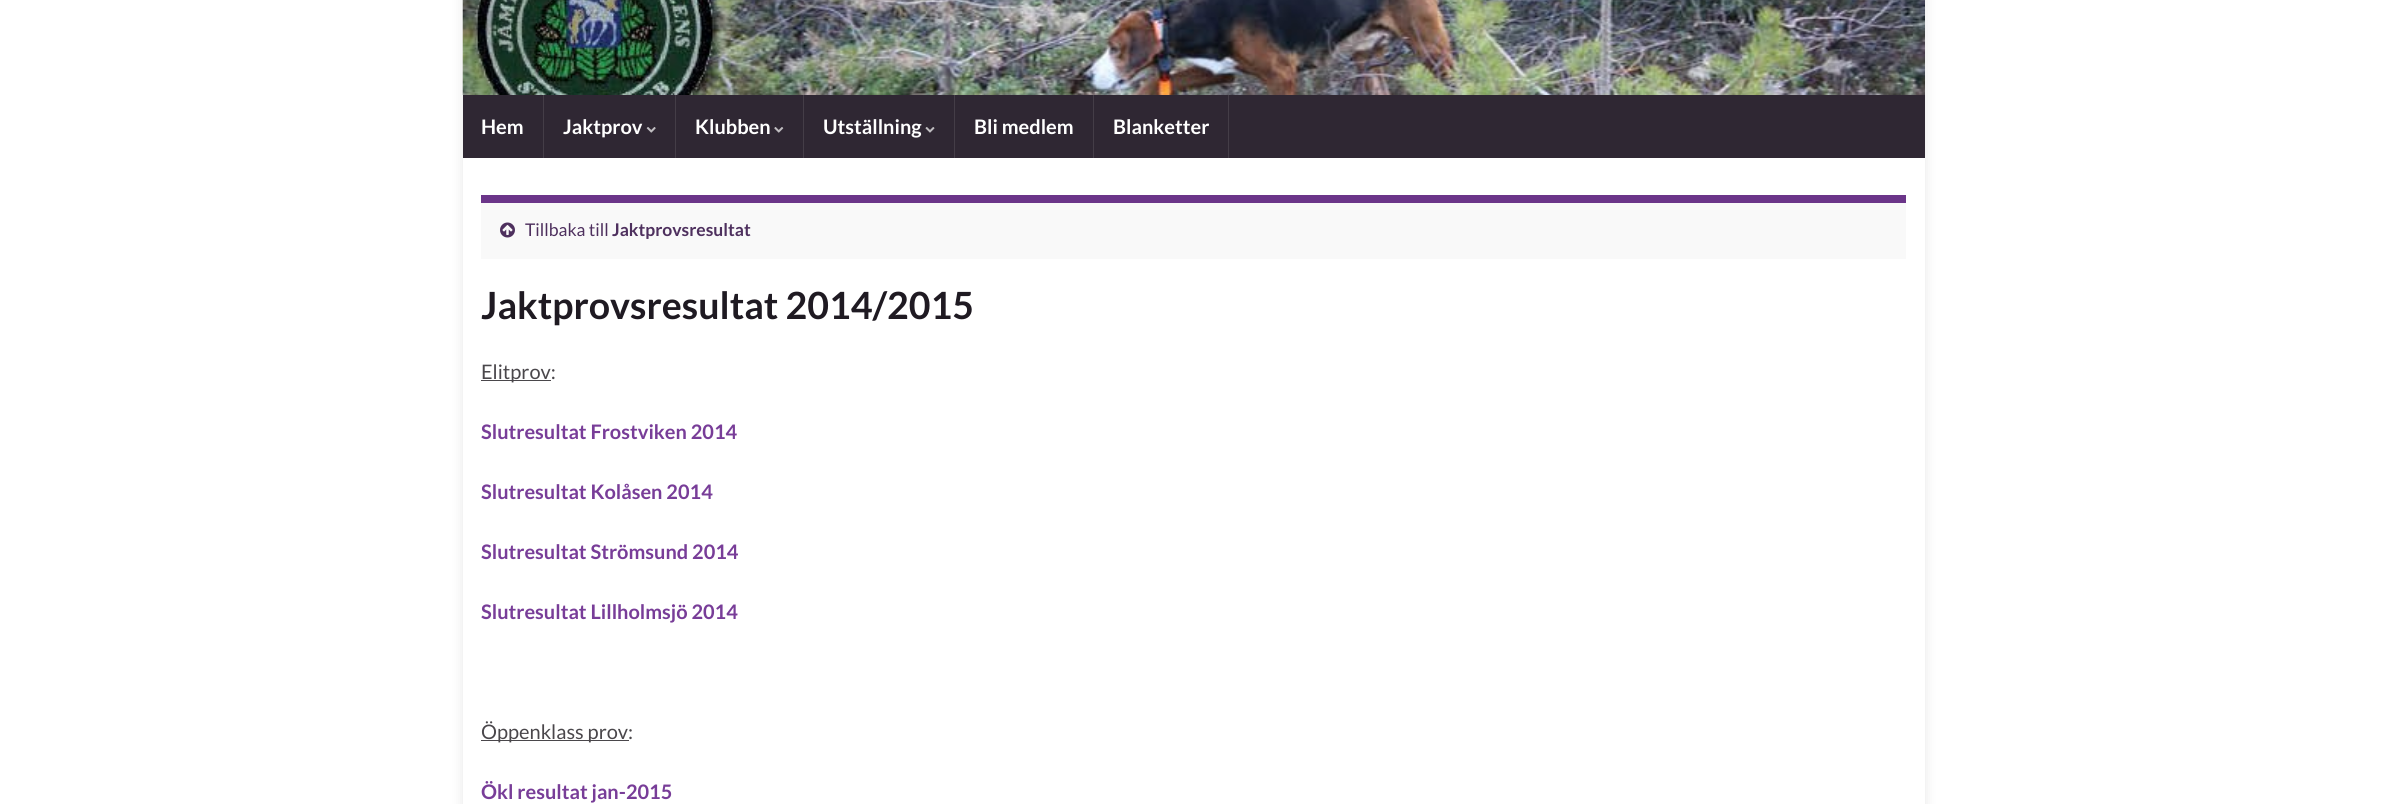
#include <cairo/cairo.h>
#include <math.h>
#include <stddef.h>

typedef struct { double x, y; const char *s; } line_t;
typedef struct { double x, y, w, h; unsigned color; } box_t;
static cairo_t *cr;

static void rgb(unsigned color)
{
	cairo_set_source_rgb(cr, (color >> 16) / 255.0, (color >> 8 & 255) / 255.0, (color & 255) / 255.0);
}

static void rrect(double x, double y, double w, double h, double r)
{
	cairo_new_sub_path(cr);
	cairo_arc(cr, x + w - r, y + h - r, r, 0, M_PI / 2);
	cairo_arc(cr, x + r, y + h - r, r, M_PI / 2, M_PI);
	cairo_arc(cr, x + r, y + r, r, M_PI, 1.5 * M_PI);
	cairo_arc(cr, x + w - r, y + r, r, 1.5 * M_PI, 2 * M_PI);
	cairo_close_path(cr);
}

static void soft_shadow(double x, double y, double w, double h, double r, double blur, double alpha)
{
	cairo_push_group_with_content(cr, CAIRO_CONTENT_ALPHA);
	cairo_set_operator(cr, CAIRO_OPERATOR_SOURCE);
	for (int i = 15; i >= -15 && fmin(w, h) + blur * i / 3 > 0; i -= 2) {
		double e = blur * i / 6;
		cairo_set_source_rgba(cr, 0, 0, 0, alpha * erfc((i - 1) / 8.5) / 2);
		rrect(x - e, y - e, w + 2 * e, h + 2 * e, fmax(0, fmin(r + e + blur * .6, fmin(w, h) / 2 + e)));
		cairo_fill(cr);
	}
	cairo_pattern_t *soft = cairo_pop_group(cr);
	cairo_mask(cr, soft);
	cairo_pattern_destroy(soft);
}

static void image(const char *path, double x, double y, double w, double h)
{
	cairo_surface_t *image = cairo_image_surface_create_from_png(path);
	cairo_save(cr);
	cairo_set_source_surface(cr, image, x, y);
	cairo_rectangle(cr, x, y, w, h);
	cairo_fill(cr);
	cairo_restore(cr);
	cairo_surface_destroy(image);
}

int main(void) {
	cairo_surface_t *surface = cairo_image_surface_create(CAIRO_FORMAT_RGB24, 2387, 804);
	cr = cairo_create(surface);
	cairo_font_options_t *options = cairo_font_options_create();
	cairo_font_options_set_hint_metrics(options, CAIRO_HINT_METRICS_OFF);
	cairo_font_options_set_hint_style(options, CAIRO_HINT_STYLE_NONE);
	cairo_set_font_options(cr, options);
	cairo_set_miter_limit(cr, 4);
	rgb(0xffffff);
	cairo_paint(cr);
	cairo_save(cr);
	cairo_set_fill_rule(cr, CAIRO_FILL_RULE_EVEN_ODD);
	cairo_new_path(cr);
	cairo_move_to(cr, 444, 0);
	cairo_line_to(cr, 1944, 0);
	cairo_line_to(cr, 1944, 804);
	cairo_line_to(cr, 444, 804);
	cairo_close_path(cr);
	cairo_move_to(cr, 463, -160);
	cairo_line_to(cr, 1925, -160);
	cairo_line_to(cr, 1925, 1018);
	cairo_line_to(cr, 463, 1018);
	cairo_close_path(cr);
	cairo_clip(cr);
	rgb(0x000000);
	soft_shadow(463, -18, 1462, 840, 0, 6, 0.1);
	cairo_restore(cr);
	image("img/1.png", 462, 0, 1463, 95);
	{
		static const box_t items[] = {
			{463, 95, 1462, 63, 0x2f2733},
			{543, 95, 1, 63, 0x443d47},
			{675, 95, 1, 63, 0x443d47},
		};
		for (size_t i = 0; i < sizeof items / sizeof *items; i++) {
			rgb(items[i].color);
			cairo_rectangle(cr, items[i].x, items[i].y, items[i].w, items[i].h);
			cairo_fill(cr);
		}
	}
	image("img/2.png", 646, 127, 10, 6);
	cairo_rectangle(cr, 803, 95, 1, 63);
	cairo_fill(cr);
	image("img/3.png", 774, 127, 10, 6);
	cairo_rectangle(cr, 954, 95, 1, 63);
	cairo_fill(cr);
	image("img/4.png", 925, 127, 10, 6);
	{
		static const box_t items[] = {
			{1093, 95, 1, 63, 0x443d47},
			{1228, 95, 1, 63, 0x443d47},
			{481, 203, 1425, 56, 0xf9f9f9},
			{481, 195, 1425, 8, 0x6b3589},
		};
		for (size_t i = 0; i < sizeof items / sizeof *items; i++) {
			rgb(items[i].color);
			cairo_rectangle(cr, items[i].x, items[i].y, items[i].w, items[i].h);
			cairo_fill(cr);
		}
	}
	image("img/5.png", 500, 222, 15, 16);
	rgb(0x4a474b);
	cairo_rectangle(cr, 481, 380, 70, 1);
	cairo_fill(cr);
	cairo_rectangle(cr, 481, 740, 148, 1);
	cairo_fill(cr);
	cairo_select_font_face(cr, "Lato", CAIRO_FONT_SLANT_NORMAL, CAIRO_FONT_WEIGHT_BOLD);
	cairo_set_font_size(cr, 20);
	rgb(0xffffff);
	{
		static const line_t items[] = {
			{481, 134, "Hem"},
			{563, 134, "Jaktprov"},
			{695, 134, "Klubben"},
			{823, 134, "Utställning"},
			{974, 134, "Bli medlem"},
			{1113, 134, "Blanketter"},
		};
		for (size_t i = 0; i < sizeof items / sizeof *items; i++) {
			cairo_move_to(cr, items[i].x, items[i].y);
			cairo_show_text(cr, items[i].s);
		}
	}
	cairo_select_font_face(cr, "Lato", CAIRO_FONT_SLANT_NORMAL, CAIRO_FONT_WEIGHT_NORMAL);
	cairo_set_font_size(cr, 17.5);
	rgb(0x4e305e);
	cairo_move_to(cr, 525, 236);
	cairo_show_text(cr, "Tillbaka till");
	cairo_select_font_face(cr, "Lato", CAIRO_FONT_SLANT_NORMAL, CAIRO_FONT_WEIGHT_BOLD);
	cairo_move_to(cr, 612, 236);
	cairo_show_text(cr, "Jaktprovsresultat");
	cairo_set_font_size(cr, 37.5);
	rgb(0x1f1a22);
	cairo_move_to(cr, 481, 319);
	cairo_show_text(cr, "Jaktprovsresultat 2014/2015");
	cairo_select_font_face(cr, "Lato", CAIRO_FONT_SLANT_NORMAL, CAIRO_FONT_WEIGHT_NORMAL);
	cairo_set_font_size(cr, 20);
	rgb(0x4a474b);
	cairo_move_to(cr, 481, 379);
	cairo_show_text(cr, "Elitprov:");
	cairo_select_font_face(cr, "Lato", CAIRO_FONT_SLANT_NORMAL, CAIRO_FONT_WEIGHT_BOLD);
	rgb(0x783d98);
	{
		static const line_t items[] = {
			{481, 439, "Slutresultat Frostviken 2014"},
			{481, 499, "Slutresultat Kolåsen 2014"},
			{481, 559, "Slutresultat Strömsund 2014"},
			{481, 619, "Slutresultat Lillholmsjö 2014"},
		};
		for (size_t i = 0; i < sizeof items / sizeof *items; i++) {
			cairo_move_to(cr, items[i].x, items[i].y);
			cairo_show_text(cr, items[i].s);
		}
	}
	cairo_select_font_face(cr, "Lato", CAIRO_FONT_SLANT_NORMAL, CAIRO_FONT_WEIGHT_NORMAL);
	rgb(0x4a474b);
	cairo_move_to(cr, 481, 739);
	cairo_show_text(cr, "Öppenklass prov:");
	cairo_select_font_face(cr, "Lato", CAIRO_FONT_SLANT_NORMAL, CAIRO_FONT_WEIGHT_BOLD);
	rgb(0x783d98);
	cairo_move_to(cr, 481, 799);
	cairo_show_text(cr, "Ökl resultat jan-2015");
	cairo_surface_write_to_png(surface, "page.png");
	cairo_font_options_destroy(options);
	cairo_destroy(cr);
	cairo_surface_destroy(surface);
	return 0;
}
